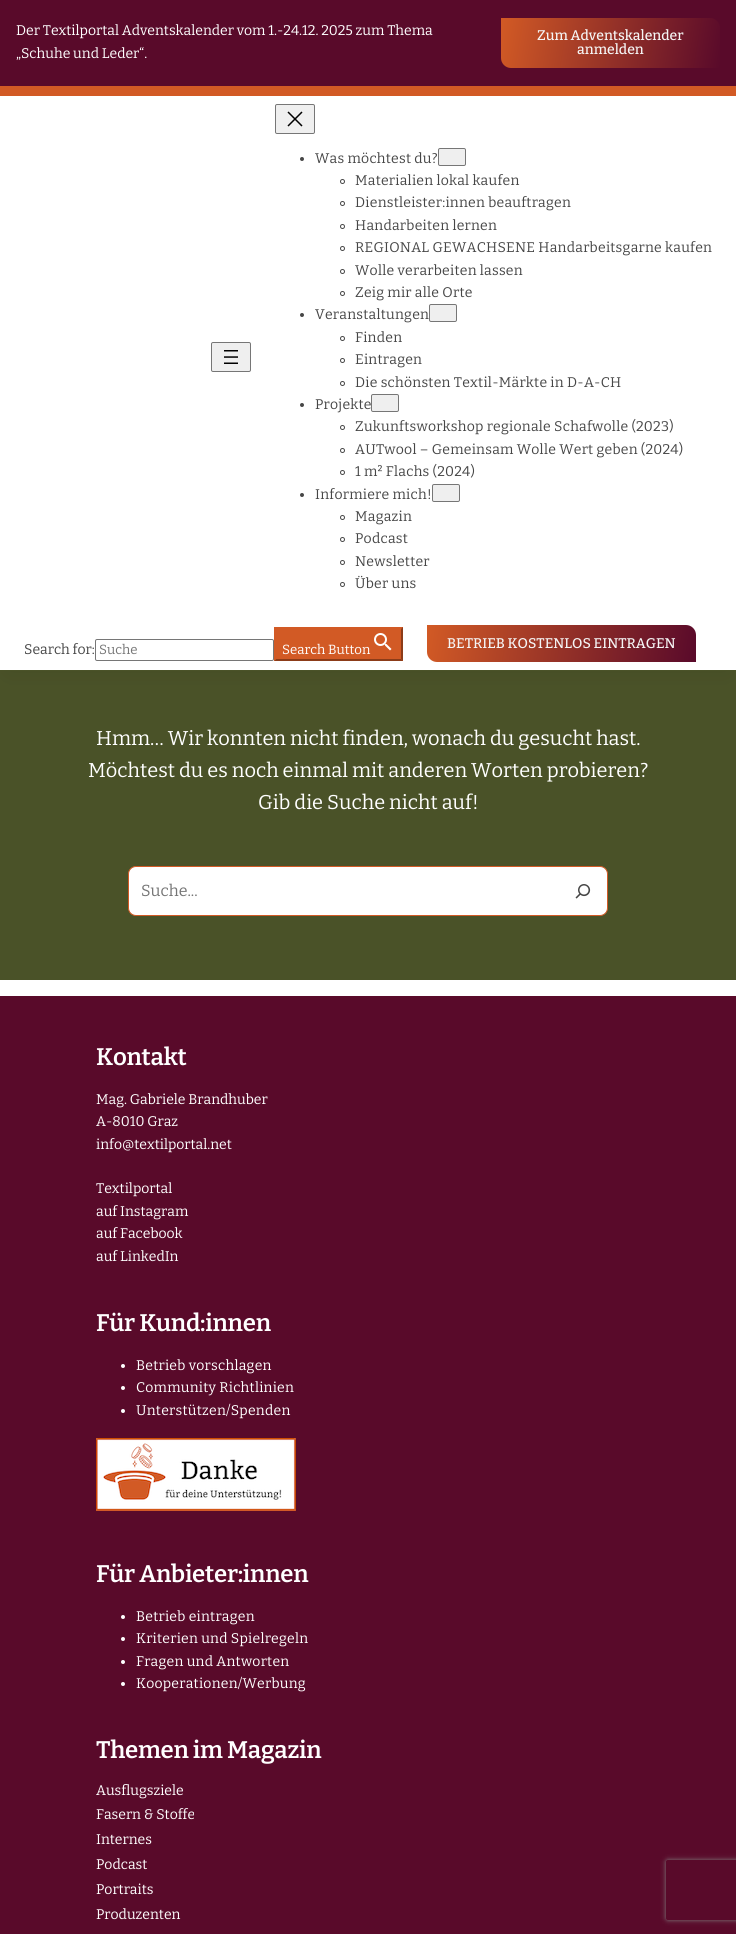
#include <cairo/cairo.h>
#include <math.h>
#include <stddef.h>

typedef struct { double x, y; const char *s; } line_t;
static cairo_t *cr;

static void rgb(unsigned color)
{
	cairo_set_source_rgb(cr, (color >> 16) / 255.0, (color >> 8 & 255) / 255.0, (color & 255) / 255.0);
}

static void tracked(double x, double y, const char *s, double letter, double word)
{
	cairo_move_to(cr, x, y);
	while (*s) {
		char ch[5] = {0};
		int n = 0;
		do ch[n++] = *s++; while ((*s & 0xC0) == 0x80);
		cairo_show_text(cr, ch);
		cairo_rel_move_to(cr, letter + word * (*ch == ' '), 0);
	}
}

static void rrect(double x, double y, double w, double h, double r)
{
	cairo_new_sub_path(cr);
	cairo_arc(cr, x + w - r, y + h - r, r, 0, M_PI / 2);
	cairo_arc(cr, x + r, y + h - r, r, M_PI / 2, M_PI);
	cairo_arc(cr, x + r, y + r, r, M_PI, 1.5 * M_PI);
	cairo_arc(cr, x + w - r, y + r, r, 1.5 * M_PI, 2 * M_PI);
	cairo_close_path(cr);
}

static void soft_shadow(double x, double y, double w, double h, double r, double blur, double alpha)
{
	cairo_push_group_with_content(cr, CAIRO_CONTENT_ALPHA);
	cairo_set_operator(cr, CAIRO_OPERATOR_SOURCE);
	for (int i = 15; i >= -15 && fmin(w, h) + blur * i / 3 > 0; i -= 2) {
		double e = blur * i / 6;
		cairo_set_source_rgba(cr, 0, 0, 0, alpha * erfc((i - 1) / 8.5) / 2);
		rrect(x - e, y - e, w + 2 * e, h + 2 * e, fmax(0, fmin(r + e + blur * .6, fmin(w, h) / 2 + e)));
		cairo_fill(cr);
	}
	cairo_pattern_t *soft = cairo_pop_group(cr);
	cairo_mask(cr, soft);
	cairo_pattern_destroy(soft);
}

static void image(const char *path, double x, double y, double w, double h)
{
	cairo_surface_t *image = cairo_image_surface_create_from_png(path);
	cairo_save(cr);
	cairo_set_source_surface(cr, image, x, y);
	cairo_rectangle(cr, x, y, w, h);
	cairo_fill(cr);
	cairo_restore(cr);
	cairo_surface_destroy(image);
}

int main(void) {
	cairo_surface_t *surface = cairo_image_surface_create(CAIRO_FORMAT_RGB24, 736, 1934);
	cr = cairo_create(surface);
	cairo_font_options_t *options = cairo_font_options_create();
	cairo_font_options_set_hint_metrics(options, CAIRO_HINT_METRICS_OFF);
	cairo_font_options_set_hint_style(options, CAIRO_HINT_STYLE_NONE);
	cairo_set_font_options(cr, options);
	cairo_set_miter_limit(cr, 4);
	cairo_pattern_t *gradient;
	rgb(0xffffff);
	cairo_paint(cr);
	rgb(0x4a5228);
	cairo_rectangle(cr, 0, 671, 736, 309);
	cairo_fill(cr);
	rgb(0x000000);
	soft_shadow(8, 16, 720, 655, 0, 12, 0.08);
	rgb(0x4a5228);
	cairo_rectangle(cr, 0, 670, 736, 1);
	cairo_fill(cr);
	rgb(0x590a2a);
	cairo_rectangle(cr, 0, 0, 736, 86);
	cairo_fill(cr);
	gradient = cairo_pattern_create_linear(500, 24, 721, 62);
	cairo_pattern_add_color_stop_rgba(gradient, 0, 0.824, 0.353, 0.145, 1);
	cairo_pattern_add_color_stop_rgba(gradient, 1, 0.349, 0.039, 0.165, 1);
	cairo_set_source(cr, gradient);
	cairo_pattern_destroy(gradient);
	cairo_new_path(cr);
	cairo_move_to(cr, 501, 18);
	cairo_line_to(cr, 710, 18);
	cairo_curve_to(cr, 715.5, 18, 720, 22.5, 720, 28);
	cairo_line_to(cr, 720, 68);
	cairo_line_to(cr, 511, 68);
	cairo_curve_to(cr, 505.5, 68, 501, 63.5, 501, 58);
	cairo_close_path(cr);
	cairo_fill(cr);
	rgb(0xffffff);
	cairo_rectangle(cr, 0, 96, 736, 574);
	cairo_fill(cr);
	rgb(0xd25a25);
	cairo_rectangle(cr, 0, 86, 736, 10);
	cairo_fill(cr);
	rgb(0xefefef);
	rrect(211.5, 342.5, 39, 29, 1.5);
	cairo_fill_preserve(cr);
	rgb(0x767676);
	cairo_set_line_width(cr, 1);
	cairo_stroke(cr);
	image("img/1.png", 224, 350, 14, 14);
	rgb(0xefefef);
	rrect(275.5, 104.5, 39, 29, 1.5);
	cairo_fill_preserve(cr);
	rgb(0x767676);
	cairo_stroke(cr);
	image("img/2.png", 287, 111, 16, 16);
	rgb(0x464646);
	cairo_arc(cr, 302, 159, 2, 0, 2 * M_PI);
	cairo_fill(cr);
	rgb(0xefefef);
	rrect(438.5, 148.5, 27, 17, 1.5);
	cairo_fill_preserve(cr);
	rgb(0x767676);
	cairo_stroke(cr);
	cairo_arc(cr, 342.5, 181.5, 2, 0, 2 * M_PI);
	rgb(0x464646);
	cairo_stroke(cr);
	cairo_arc(cr, 342.5, 203.5, 2, 0, 2 * M_PI);
	cairo_stroke(cr);
	cairo_arc(cr, 342.5, 226.5, 2, 0, 2 * M_PI);
	cairo_stroke(cr);
	cairo_arc(cr, 342.5, 248.5, 2, 0, 2 * M_PI);
	cairo_stroke(cr);
	cairo_arc(cr, 342.5, 271.5, 2, 0, 2 * M_PI);
	cairo_stroke(cr);
	cairo_arc(cr, 342.5, 293.5, 2, 0, 2 * M_PI);
	cairo_stroke(cr);
	cairo_arc(cr, 302, 315, 2, 0, 2 * M_PI);
	cairo_fill(cr);
	rgb(0xefefef);
	rrect(429.5, 304.5, 27, 17, 1.5);
	cairo_fill_preserve(cr);
	rgb(0x767676);
	cairo_stroke(cr);
	cairo_arc(cr, 342.5, 338.5, 2, 0, 2 * M_PI);
	rgb(0x464646);
	cairo_stroke(cr);
	cairo_arc(cr, 342.5, 360.5, 2, 0, 2 * M_PI);
	cairo_stroke(cr);
	cairo_arc(cr, 342.5, 383.5, 2, 0, 2 * M_PI);
	cairo_stroke(cr);
	cairo_arc(cr, 302, 405, 2, 0, 2 * M_PI);
	cairo_fill(cr);
	rgb(0xefefef);
	rrect(371.5, 394.5, 27, 17, 1.5);
	cairo_fill_preserve(cr);
	rgb(0x767676);
	cairo_stroke(cr);
	cairo_arc(cr, 342.5, 427.5, 2, 0, 2 * M_PI);
	rgb(0x464646);
	cairo_stroke(cr);
	cairo_arc(cr, 342.5, 450.5, 2, 0, 2 * M_PI);
	cairo_stroke(cr);
	cairo_arc(cr, 342.5, 472.5, 2, 0, 2 * M_PI);
	cairo_stroke(cr);
	cairo_arc(cr, 302, 495, 2, 0, 2 * M_PI);
	cairo_fill(cr);
	rgb(0xefefef);
	rrect(432.5, 484.5, 27, 17, 1.5);
	cairo_fill_preserve(cr);
	rgb(0x767676);
	cairo_stroke(cr);
	cairo_arc(cr, 342.5, 517.5, 2, 0, 2 * M_PI);
	rgb(0x464646);
	cairo_stroke(cr);
	cairo_arc(cr, 342.5, 539.5, 2, 0, 2 * M_PI);
	cairo_stroke(cr);
	cairo_arc(cr, 342.5, 562.5, 2, 0, 2 * M_PI);
	cairo_stroke(cr);
	cairo_arc(cr, 342.5, 584.5, 2, 0, 2 * M_PI);
	cairo_stroke(cr);
	rrect(95.5, 639.5, 178, 21, 1.5);
	rgb(0x767676);
	cairo_stroke(cr);
	rgb(0xd25a25);
	cairo_rectangle(cr, 274, 627, 129, 34);
	cairo_fill(cr);
	rgb(0x8c3c19);
	cairo_new_path(cr);
	cairo_move_to(cr, 403, 627);
	cairo_line_to(cr, 403, 661);
	cairo_line_to(cr, 401, 659);
	cairo_line_to(cr, 401, 629);
	cairo_close_path(cr);
	cairo_fill(cr);
	cairo_new_path(cr);
	cairo_move_to(cr, 403, 661);
	cairo_line_to(cr, 274, 661);
	cairo_line_to(cr, 276, 659);
	cairo_line_to(cr, 401, 659);
	cairo_close_path(cr);
	cairo_fill(cr);
	rgb(0xd25a25);
	cairo_new_path(cr);
	cairo_move_to(cr, 274, 661);
	cairo_line_to(cr, 274, 627);
	cairo_line_to(cr, 276, 629);
	cairo_line_to(cr, 276, 659);
	cairo_close_path(cr);
	cairo_fill(cr);
	image("img/3.png", 374, 633, 18, 18);
	gradient = cairo_pattern_create_linear(428, 620, 695, 667);
	cairo_pattern_add_color_stop_rgba(gradient, 0, 0.824, 0.353, 0.145, 1);
	cairo_pattern_add_color_stop_rgba(gradient, 1, 0.349, 0.039, 0.165, 1);
	cairo_set_source(cr, gradient);
	cairo_pattern_destroy(gradient);
	cairo_new_path(cr);
	cairo_move_to(cr, 427, 625);
	cairo_line_to(cr, 686, 625);
	cairo_curve_to(cr, 691.5, 625, 696, 629.5, 696, 635);
	cairo_line_to(cr, 696, 662);
	cairo_line_to(cr, 437, 662);
	cairo_curve_to(cr, 431.5, 662, 427, 657.5, 427, 652);
	cairo_close_path(cr);
	cairo_fill(cr);
	rgb(0xffffff);
	rrect(128.5, 866.5, 479, 49, 7.5);
	cairo_fill_preserve(cr);
	rgb(0xd25a25);
	cairo_stroke(cr);
	image("img/4.png", 575, 884, 16, 15);
	rgb(0x590a2a);
	cairo_rectangle(cr, 0, 996, 736, 938);
	cairo_fill(cr);
	rgb(0xffffff);
	cairo_arc(cr, 123, 1366, 2, 0, 2 * M_PI);
	cairo_fill(cr);
	cairo_arc(cr, 123, 1388, 2, 0, 2 * M_PI);
	cairo_fill(cr);
	cairo_arc(cr, 123, 1411, 2, 0, 2 * M_PI);
	cairo_fill(cr);
	image("img/5.png", 96, 1438, 200, 73);
	cairo_arc(cr, 123, 1617, 2, 0, 2 * M_PI);
	cairo_fill(cr);
	cairo_arc(cr, 123, 1639, 2, 0, 2 * M_PI);
	cairo_fill(cr);
	cairo_arc(cr, 123, 1662, 2, 0, 2 * M_PI);
	cairo_fill(cr);
	cairo_arc(cr, 123, 1684, 2, 0, 2 * M_PI);
	cairo_fill(cr);
	cairo_save(cr);
	cairo_set_fill_rule(cr, CAIRO_FILL_RULE_EVEN_ODD);
	cairo_new_path(cr);
	cairo_move_to(cr, 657, 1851);
	cairo_line_to(cr, 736, 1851);
	cairo_line_to(cr, 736, 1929);
	cairo_line_to(cr, 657, 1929);
	cairo_close_path(cr);
	cairo_move_to(cr, 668, 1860);
	cairo_line_to(cr, 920, 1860);
	cairo_curve_to(cr, 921, 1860, 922, 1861, 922, 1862);
	cairo_line_to(cr, 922, 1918);
	cairo_curve_to(cr, 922, 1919, 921, 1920, 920, 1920);
	cairo_line_to(cr, 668, 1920);
	cairo_curve_to(cr, 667, 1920, 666, 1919, 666, 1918);
	cairo_line_to(cr, 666, 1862);
	cairo_curve_to(cr, 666, 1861, 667, 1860, 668, 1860);
	cairo_close_path(cr);
	cairo_clip(cr);
	rgb(0x808080);
	soft_shadow(666, 1860, 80, 60, 2, 2.5, 1);
	cairo_restore(cr);
	cairo_select_font_face(cr, "Bitter", CAIRO_FONT_SLANT_NORMAL, CAIRO_FONT_WEIGHT_NORMAL);
	cairo_set_font_size(cr, 14);
	cairo_move_to(cr, 16, 35);
	cairo_show_text(cr, "Der Textilportal Adventskalender vom 1.-24.12. 2025 zum Thema");
	cairo_move_to(cr, 16, 58);
	cairo_show_text(cr, "„Schuhe und Leder“.");
	cairo_select_font_face(cr, "Bitter Medium", CAIRO_FONT_SLANT_NORMAL, CAIRO_FONT_WEIGHT_NORMAL);
	rgb(0xf5f5f5);
	cairo_move_to(cr, 537, 40);
	cairo_show_text(cr, "Zum Adventskalender");
	cairo_move_to(cr, 577, 54);
	cairo_show_text(cr, "anmelden");
	cairo_select_font_face(cr, "Bitter", CAIRO_FONT_SLANT_NORMAL, CAIRO_FONT_WEIGHT_NORMAL);
	rgb(0x464646);
	{
		static const line_t items[] = {
			{315, 163, "Was möchtest du?"},
			{355, 185, "Materialien lokal kaufen"},
			{355, 207, "Dienstleister:innen beauftragen"},
			{355, 230, "Handarbeiten lernen"},
			{355, 252, "REGIONAL GEWACHSENE Handarbeitsgarne kaufen"},
			{355, 275, "Wolle verarbeiten lassen"},
			{355, 297, "Zeig mir alle Orte"},
			{315, 319, "Veranstaltungen"},
			{355, 342, "Finden"},
			{355, 364, "Eintragen"},
			{355, 387, "Die schönsten Textil-Märkte in D-A-CH"},
			{315, 409, "Projekte"},
			{355, 431, "Zukunftsworkshop regionale Schafwolle (2023)"},
			{355, 454, "AUTwool – Gemeinsam Wolle Wert geben (2024)"},
			{355, 476, "1 m² Flachs (2024)"},
			{315, 499, "Informiere mich!"},
			{355, 521, "Magazin"},
			{355, 543, "Podcast"},
			{355, 566, "Newsletter"},
			{355, 588, "Über uns"},
		};
		for (size_t i = 0; i < sizeof items / sizeof *items; i++) {
			tracked(items[i].x, items[i].y, items[i].s, 0.25, 0);
		}
	}
	cairo_move_to(cr, 24, 654);
	cairo_show_text(cr, "Search for:");
	cairo_set_font_size(cr, 13.25);
	rgb(0x757575);
	cairo_move_to(cr, 99, 654);
	cairo_show_text(cr, "Suche");
	rgb(0xffffff);
	cairo_move_to(cr, 282, 654);
	cairo_show_text(cr, "Search Button");
	cairo_select_font_face(cr, "Bitter Medium", CAIRO_FONT_SLANT_NORMAL, CAIRO_FONT_WEIGHT_NORMAL);
	cairo_set_font_size(cr, 14);
	rgb(0xf5f5f5);
	cairo_move_to(cr, 447, 648);
	cairo_show_text(cr, "BETRIEB KOSTENLOS EINTRAGEN");
	cairo_select_font_face(cr, "Bitter", CAIRO_FONT_SLANT_NORMAL, CAIRO_FONT_WEIGHT_NORMAL);
	cairo_set_font_size(cr, 20);
	rgb(0xffffff);
	{
		static const line_t items[] = {
			{96, 745, "Hmm… Wir konnten nicht finden, wonach du gesucht hast."},
			{88, 777, "Möchtest du es noch einmal mit anderen Worten probieren?"},
			{258, 809, "Gib die Suche nicht auf!"},
		};
		for (size_t i = 0; i < sizeof items / sizeof *items; i++) {
			cairo_move_to(cr, items[i].x, items[i].y);
			cairo_show_text(cr, items[i].s);
		}
	}
	cairo_set_font_size(cr, 16);
	rgb(0x757575);
	cairo_move_to(cr, 141, 896);
	cairo_show_text(cr, "Suche...");
	cairo_select_font_face(cr, "Bitter SemiBold", CAIRO_FONT_SLANT_NORMAL, CAIRO_FONT_WEIGHT_NORMAL);
	cairo_set_font_size(cr, 24);
	rgb(0xffffff);
	tracked(96, 1065, "Kontakt", -0.25, 0);
	cairo_select_font_face(cr, "Bitter", CAIRO_FONT_SLANT_NORMAL, CAIRO_FONT_WEIGHT_NORMAL);
	cairo_set_font_size(cr, 14);
	{
		static const line_t items[] = {
			{96, 1104, "Mag. Gabriele Brandhuber"},
			{96, 1126, "A-8010 Graz"},
			{96, 1149, "info@textilportal.net"},
			{96, 1193, "Textilportal"},
			{96, 1216, "auf Instagram"},
			{96, 1238, "auf Facebook"},
			{96, 1261, "auf LinkedIn"},
		};
		for (size_t i = 0; i < sizeof items / sizeof *items; i++) {
			cairo_move_to(cr, items[i].x, items[i].y);
			cairo_show_text(cr, items[i].s);
		}
	}
	cairo_select_font_face(cr, "Bitter SemiBold", CAIRO_FONT_SLANT_NORMAL, CAIRO_FONT_WEIGHT_NORMAL);
	cairo_set_font_size(cr, 24);
	tracked(96, 1331, "Für Kund:innen", -0.25, 0);
	cairo_select_font_face(cr, "Bitter", CAIRO_FONT_SLANT_NORMAL, CAIRO_FONT_WEIGHT_NORMAL);
	cairo_set_font_size(cr, 14);
	{
		static const line_t items[] = {
			{136, 1370, "Betrieb vorschlagen"},
			{136, 1392, "Community Richtlinien"},
			{136, 1415, "Unterstützen/Spenden"},
		};
		for (size_t i = 0; i < sizeof items / sizeof *items; i++) {
			tracked(items[i].x, items[i].y, items[i].s, 0.25, 0);
		}
	}
	cairo_select_font_face(cr, "Bitter SemiBold", CAIRO_FONT_SLANT_NORMAL, CAIRO_FONT_WEIGHT_NORMAL);
	cairo_set_font_size(cr, 24);
	tracked(96, 1582, "Für Anbieter:innen", -0.25, 0);
	cairo_select_font_face(cr, "Bitter", CAIRO_FONT_SLANT_NORMAL, CAIRO_FONT_WEIGHT_NORMAL);
	cairo_set_font_size(cr, 14);
	{
		static const line_t items[] = {
			{136, 1621, "Betrieb eintragen"},
			{136, 1643, "Kriterien und Spielregeln"},
			{136, 1666, "Fragen und Antworten"},
			{136, 1688, "Kooperationen/Werbung"},
		};
		for (size_t i = 0; i < sizeof items / sizeof *items; i++) {
			tracked(items[i].x, items[i].y, items[i].s, 0.25, 0);
		}
	}
	cairo_select_font_face(cr, "Bitter SemiBold", CAIRO_FONT_SLANT_NORMAL, CAIRO_FONT_WEIGHT_NORMAL);
	cairo_set_font_size(cr, 24);
	tracked(96, 1758, "Themen im Magazin", -0.25, 0);
	cairo_select_font_face(cr, "Bitter", CAIRO_FONT_SLANT_NORMAL, CAIRO_FONT_WEIGHT_NORMAL);
	cairo_set_font_size(cr, 14);
	{
		static const line_t items[] = {
			{96, 1795, "Ausflugsziele"},
			{96, 1819, "Fasern & Stoffe"},
			{96, 1844, "Internes"},
			{96, 1869, "Podcast"},
			{96, 1894, "Portraits"},
			{96, 1919, "Produzenten"},
		};
		for (size_t i = 0; i < sizeof items / sizeof *items; i++) {
			cairo_move_to(cr, items[i].x, items[i].y);
			cairo_show_text(cr, items[i].s);
		}
	}
	cairo_surface_write_to_png(surface, "page.png");
	cairo_font_options_destroy(options);
	cairo_destroy(cr);
	cairo_surface_destroy(surface);
	return 0;
}
